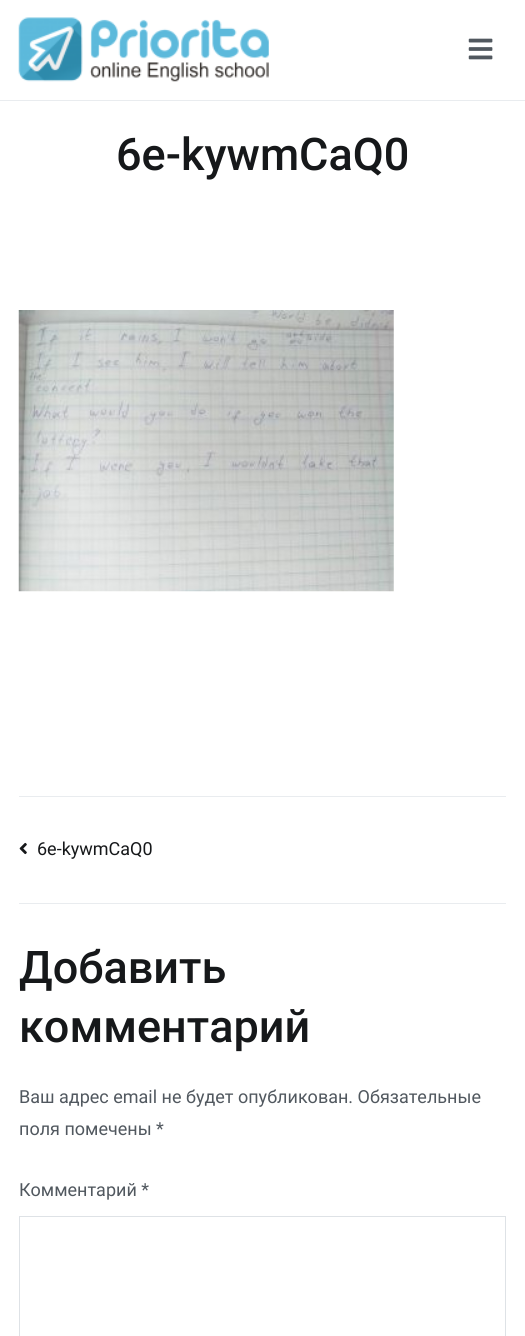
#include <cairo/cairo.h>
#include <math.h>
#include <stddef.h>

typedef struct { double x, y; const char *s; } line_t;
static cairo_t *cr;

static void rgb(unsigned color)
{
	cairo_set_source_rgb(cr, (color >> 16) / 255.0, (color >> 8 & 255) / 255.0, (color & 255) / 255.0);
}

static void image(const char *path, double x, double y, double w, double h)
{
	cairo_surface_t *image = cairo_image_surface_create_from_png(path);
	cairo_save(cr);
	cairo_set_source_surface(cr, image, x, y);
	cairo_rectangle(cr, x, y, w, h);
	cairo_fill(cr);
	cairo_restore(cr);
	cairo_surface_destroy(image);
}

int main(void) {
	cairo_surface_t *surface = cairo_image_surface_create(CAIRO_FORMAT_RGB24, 525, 1336);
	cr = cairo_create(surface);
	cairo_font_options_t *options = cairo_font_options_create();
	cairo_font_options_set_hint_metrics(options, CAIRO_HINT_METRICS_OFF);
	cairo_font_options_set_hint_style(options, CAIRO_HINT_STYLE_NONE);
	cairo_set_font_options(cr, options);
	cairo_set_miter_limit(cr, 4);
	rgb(0xffffff);
	cairo_paint(cr);
	rgb(0xe9ecef);
	cairo_rectangle(cr, 0, 100, 525, 1);
	cairo_fill(cr);
	image("img/1.png", 18, 17, 251, 65);
	image("img/2.png", 468, 38, 25, 22);
	image("img/3.png", 18, 310, 376, 282);
	cairo_rectangle(cr, 19, 796, 487, 1);
	cairo_fill(cr);
	image("img/4.png", 19, 842, 8, 13);
	cairo_rectangle(cr, 19, 903, 487, 1);
	cairo_fill(cr);
	cairo_rectangle(cr, 19.5, 1216.5, 486, 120);
	rgb(0xdee2e6);
	cairo_set_line_width(cr, 1);
	cairo_stroke(cr);
	cairo_select_font_face(cr, "Roboto Medium", CAIRO_FONT_SLANT_NORMAL, CAIRO_FONT_WEIGHT_NORMAL);
	cairo_set_font_size(cr, 45);
	rgb(0x16181a);
	cairo_move_to(cr, 116, 170);
	cairo_show_text(cr, "6e-kywmCaQ0");
	cairo_select_font_face(cr, "Roboto", CAIRO_FONT_SLANT_NORMAL, CAIRO_FONT_WEIGHT_NORMAL);
	cairo_set_font_size(cr, 18);
	cairo_move_to(cr, 37, 855);
	cairo_show_text(cr, "6e-kywmCaQ0");
	cairo_select_font_face(cr, "Roboto Medium", CAIRO_FONT_SLANT_NORMAL, CAIRO_FONT_WEIGHT_NORMAL);
	cairo_set_font_size(cr, 45);
	cairo_move_to(cr, 19, 983);
	cairo_show_text(cr, "Добавить");
	cairo_move_to(cr, 19, 1042);
	cairo_show_text(cr, "комментарий");
	cairo_select_font_face(cr, "Roboto", CAIRO_FONT_SLANT_NORMAL, CAIRO_FONT_WEIGHT_NORMAL);
	cairo_set_font_size(cr, 18);
	rgb(0x51585f);
	{
		static const line_t items[] = {
			{19, 1103, "Ваш адрес email не будет опубликован. Обязательные"},
			{19, 1135, "поля помечены *"},
			{19, 1196, "Комментарий *"},
		};
		for (size_t i = 0; i < sizeof items / sizeof *items; i++) {
			cairo_move_to(cr, items[i].x, items[i].y);
			cairo_show_text(cr, items[i].s);
		}
	}
	cairo_surface_write_to_png(surface, "page.png");
	cairo_font_options_destroy(options);
	cairo_destroy(cr);
	cairo_surface_destroy(surface);
	return 0;
}
